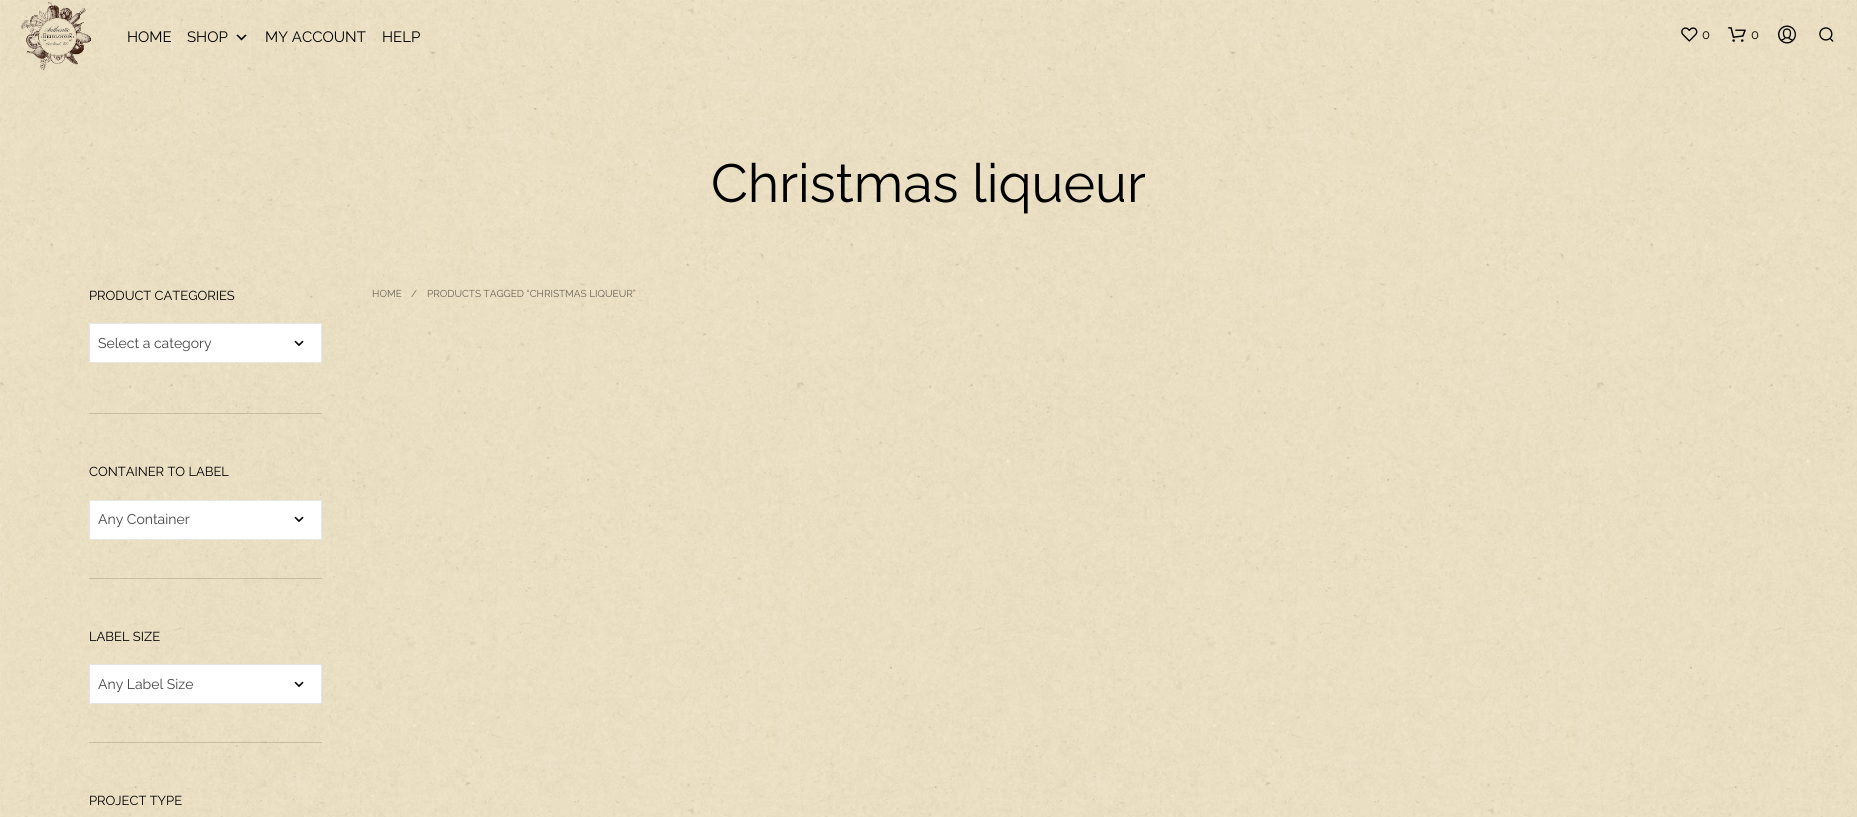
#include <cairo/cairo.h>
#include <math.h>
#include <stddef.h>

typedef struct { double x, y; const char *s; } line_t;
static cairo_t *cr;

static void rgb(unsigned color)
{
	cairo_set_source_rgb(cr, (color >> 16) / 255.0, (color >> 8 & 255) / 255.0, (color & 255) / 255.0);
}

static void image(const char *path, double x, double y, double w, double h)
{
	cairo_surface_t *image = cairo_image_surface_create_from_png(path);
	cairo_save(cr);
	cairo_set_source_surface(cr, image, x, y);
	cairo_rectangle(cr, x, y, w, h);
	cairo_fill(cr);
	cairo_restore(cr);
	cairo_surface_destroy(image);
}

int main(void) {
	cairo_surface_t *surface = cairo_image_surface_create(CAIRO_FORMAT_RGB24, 1857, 817);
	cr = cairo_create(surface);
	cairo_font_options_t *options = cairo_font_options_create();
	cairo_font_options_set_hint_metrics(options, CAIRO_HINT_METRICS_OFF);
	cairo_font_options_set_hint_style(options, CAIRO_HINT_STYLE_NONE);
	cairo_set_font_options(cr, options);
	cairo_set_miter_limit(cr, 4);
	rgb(0xffffff);
	cairo_paint(cr);
	image("img/1.png", 0, 0, 1857, 817);
	image("img/2.png", 20, 2, 72, 69);
	cairo_set_source_rgba(cr, 1, 1, 1, 0.1);
	cairo_rectangle(cr, 172, 15, 1, 45);
	cairo_fill(cr);
	cairo_rectangle(cr, 171, 15, 1, 45);
	cairo_fill(cr);
	image("img/3.png", 236, 34, 11, 7);
	cairo_rectangle(cr, 250, 15, 1, 45);
	cairo_fill(cr);
	cairo_rectangle(cr, 249, 15, 1, 45);
	cairo_fill(cr);
	cairo_rectangle(cr, 367, 15, 1, 45);
	cairo_fill(cr);
	cairo_rectangle(cr, 366, 15, 1, 45);
	cairo_fill(cr);
	image("img/4.png", 1681, 27, 17, 15);
	image("img/5.png", 1728, 27, 18, 15);
	image("img/6.png", 1778, 25, 18, 19);
	image("img/7.png", 1819, 27, 15, 15);
	cairo_set_source_rgba(cr, 0, 0, 0, 0.15);
	cairo_rectangle(cr, 89, 413, 233, 1);
	cairo_fill(cr);
	rgb(0xffffff);
	cairo_rectangle(cr, 90, 324, 231, 38);
	cairo_fill(cr);
	image("img/8.png", 294, 340, 10, 6);
	cairo_rectangle(cr, 89.5, 323.5, 232, 39);
	rgb(0xe6e6e6);
	cairo_set_line_width(cr, 1);
	cairo_stroke(cr);
	cairo_set_source_rgba(cr, 0, 0, 0, 0.15);
	cairo_rectangle(cr, 89, 578, 233, 1);
	cairo_fill(cr);
	rgb(0xffffff);
	cairo_rectangle(cr, 90, 501, 231, 38);
	cairo_fill(cr);
	image("img/8.png", 294, 516, 10, 6);
	cairo_rectangle(cr, 89.5, 500.5, 232, 39);
	rgb(0xe6e6e6);
	cairo_stroke(cr);
	cairo_set_source_rgba(cr, 0, 0, 0, 0.15);
	cairo_rectangle(cr, 89, 742, 233, 1);
	cairo_fill(cr);
	rgb(0xffffff);
	cairo_rectangle(cr, 90, 665, 231, 38);
	cairo_fill(cr);
	image("img/8.png", 294, 681, 10, 6);
	cairo_rectangle(cr, 89.5, 664.5, 232, 39);
	rgb(0xe6e6e6);
	cairo_stroke(cr);
	cairo_select_font_face(cr, "Raleway", CAIRO_FONT_SLANT_NORMAL, CAIRO_FONT_WEIGHT_NORMAL);
	cairo_set_font_size(cr, 15);
	rgb(0x000000);
	{
		static const line_t items[] = {
			{127, 42, "HOME"},
			{187, 42, "SHOP"},
			{265, 42, "MY ACCOUNT"},
			{382, 42, "HELP"},
		};
		for (size_t i = 0; i < sizeof items / sizeof *items; i++) {
			cairo_move_to(cr, items[i].x, items[i].y);
			cairo_show_text(cr, items[i].s);
		}
	}
	cairo_set_font_size(cr, 13);
	cairo_move_to(cr, 1702, 39);
	cairo_show_text(cr, "0");
	cairo_move_to(cr, 1751, 39);
	cairo_show_text(cr, "0");
	cairo_set_font_size(cr, 53.75);
	cairo_move_to(cr, 711, 202);
	cairo_show_text(cr, "Christmas liqueur");
	cairo_set_font_size(cr, 13);
	cairo_move_to(cr, 89, 300);
	cairo_show_text(cr, "PRODUCT CATEGORIES");
	cairo_set_font_size(cr, 14);
	rgb(0x444444);
	cairo_move_to(cr, 98, 348);
	cairo_show_text(cr, "Select a category");
	cairo_set_font_size(cr, 13);
	rgb(0x000000);
	cairo_move_to(cr, 89, 476);
	cairo_show_text(cr, "CONTAINER TO LABEL");
	cairo_set_font_size(cr, 14);
	rgb(0x444444);
	cairo_move_to(cr, 98, 524);
	cairo_show_text(cr, "Any Container");
	cairo_set_font_size(cr, 13);
	rgb(0x000000);
	cairo_move_to(cr, 89, 641);
	cairo_show_text(cr, "LABEL SIZE");
	cairo_set_font_size(cr, 14);
	rgb(0x444444);
	cairo_move_to(cr, 98, 689);
	cairo_show_text(cr, "Any Label Size");
	cairo_set_font_size(cr, 13);
	rgb(0x000000);
	cairo_move_to(cr, 89, 805);
	cairo_show_text(cr, "PROJECT TYPE");
	cairo_set_font_size(cr, 10);
	rgb(0x696457);
	{
		static const line_t items[] = {
			{372, 297, "HOME"},
			{411, 297, "/"},
			{427, 297, "PRODUCTS TAGGED “CHRISTMAS LIQUEUR”"},
		};
		for (size_t i = 0; i < sizeof items / sizeof *items; i++) {
			cairo_move_to(cr, items[i].x, items[i].y);
			cairo_show_text(cr, items[i].s);
		}
	}
	cairo_surface_write_to_png(surface, "page.png");
	cairo_font_options_destroy(options);
	cairo_destroy(cr);
	cairo_surface_destroy(surface);
	return 0;
}
